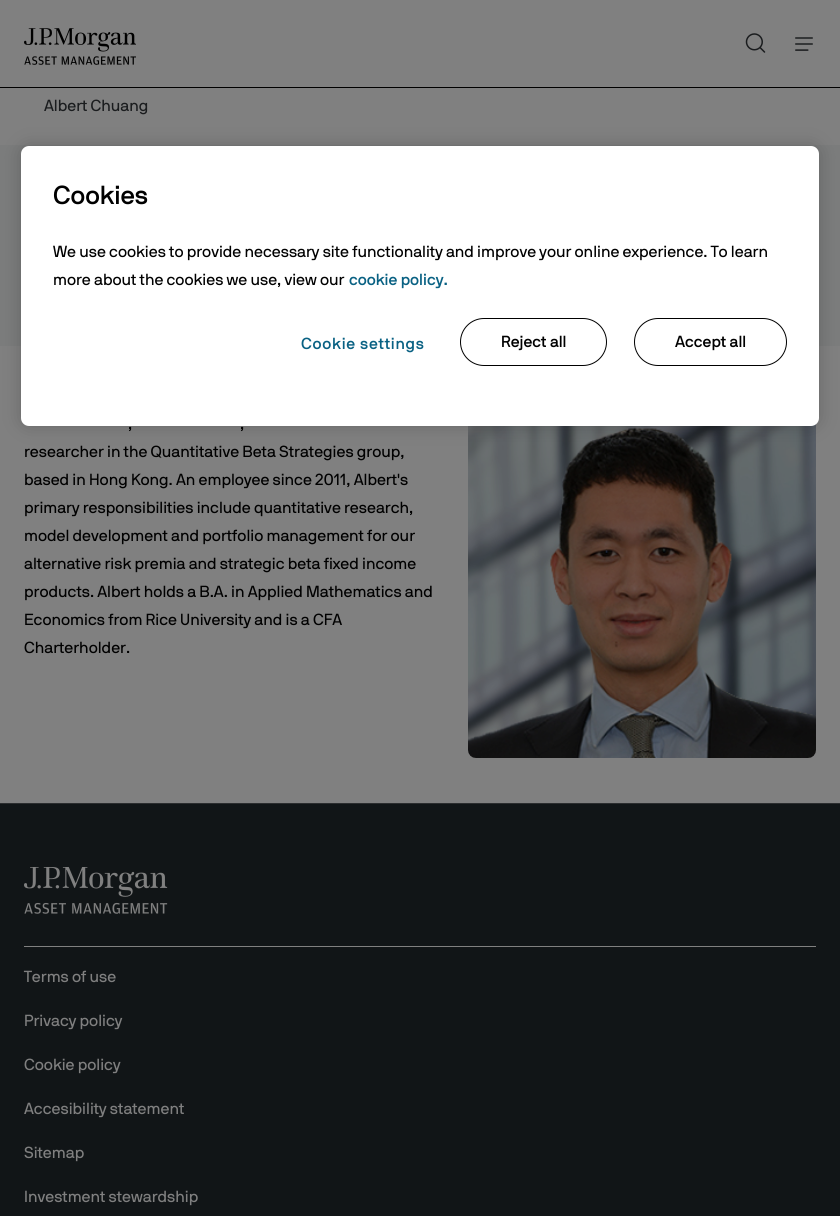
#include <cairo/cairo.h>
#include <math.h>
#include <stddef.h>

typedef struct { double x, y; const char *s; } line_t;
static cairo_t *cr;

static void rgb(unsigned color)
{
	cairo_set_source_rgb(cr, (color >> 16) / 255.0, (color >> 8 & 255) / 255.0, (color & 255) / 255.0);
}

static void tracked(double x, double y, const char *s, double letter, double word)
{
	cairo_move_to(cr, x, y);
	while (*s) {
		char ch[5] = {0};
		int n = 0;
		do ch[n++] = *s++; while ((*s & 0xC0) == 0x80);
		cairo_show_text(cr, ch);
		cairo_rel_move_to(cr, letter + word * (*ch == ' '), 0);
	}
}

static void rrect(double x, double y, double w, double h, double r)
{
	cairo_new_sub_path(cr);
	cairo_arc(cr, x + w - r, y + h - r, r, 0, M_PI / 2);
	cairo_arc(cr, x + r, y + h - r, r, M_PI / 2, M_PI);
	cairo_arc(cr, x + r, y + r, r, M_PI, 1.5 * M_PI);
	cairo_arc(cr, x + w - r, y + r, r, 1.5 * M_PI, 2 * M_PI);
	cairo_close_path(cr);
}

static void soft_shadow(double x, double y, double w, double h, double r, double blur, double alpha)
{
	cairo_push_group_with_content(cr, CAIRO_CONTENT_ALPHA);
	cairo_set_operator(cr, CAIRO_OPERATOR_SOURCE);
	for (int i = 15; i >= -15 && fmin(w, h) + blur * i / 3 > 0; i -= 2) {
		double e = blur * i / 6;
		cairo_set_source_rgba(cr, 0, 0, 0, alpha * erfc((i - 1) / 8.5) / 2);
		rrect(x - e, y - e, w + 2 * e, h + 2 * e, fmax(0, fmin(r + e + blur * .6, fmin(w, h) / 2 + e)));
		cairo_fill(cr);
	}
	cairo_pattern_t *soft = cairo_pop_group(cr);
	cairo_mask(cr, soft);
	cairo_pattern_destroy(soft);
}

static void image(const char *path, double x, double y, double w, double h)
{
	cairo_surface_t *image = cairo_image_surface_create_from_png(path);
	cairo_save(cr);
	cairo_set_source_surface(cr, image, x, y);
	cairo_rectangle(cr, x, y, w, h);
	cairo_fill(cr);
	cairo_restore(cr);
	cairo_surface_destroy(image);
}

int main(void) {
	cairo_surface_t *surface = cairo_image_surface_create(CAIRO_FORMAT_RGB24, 840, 1216);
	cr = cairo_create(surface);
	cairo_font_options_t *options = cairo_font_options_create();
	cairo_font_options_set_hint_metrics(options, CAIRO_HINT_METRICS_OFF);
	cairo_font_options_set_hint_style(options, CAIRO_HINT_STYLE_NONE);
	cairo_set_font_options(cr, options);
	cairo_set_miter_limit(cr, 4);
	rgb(0x808080);
	cairo_paint(cr);
	image("img/1.png", 24, 28, 112, 37);
	image("img/2.png", 745, 33, 21, 20);
	image("img/3.png", 795, 37, 18, 14);
	rgb(0x000000);
	cairo_rectangle(cr, 0, 87, 840, 1);
	cairo_fill(cr);
	rgb(0x7b7c7c);
	cairo_rectangle(cr, 0, 145, 840, 201);
	cairo_fill(cr);
	image("img/4.png", 468, 424, 348, 334);
	rgb(0x111517);
	cairo_rectangle(cr, 0, 804, 840, 412);
	cairo_fill(cr);
	rgb(0x2b2d2f);
	cairo_rectangle(cr, 0, 803, 840, 1);
	cairo_fill(cr);
	image("img/5.png", 24, 867, 144, 47);
	rgb(0x808080);
	cairo_rectangle(cr, 24, 946, 792, 1);
	cairo_fill(cr);
	rgb(0x000000);
	soft_shadow(21, 146, 798, 280, 8, 9, 0.2);
	rgb(0xffffff);
	rrect(21, 146, 798, 280, 8);
	cairo_fill(cr);
	rrect(460.5, 318.5, 146, 47, 23.5);
	rgb(0x000000);
	cairo_set_line_width(cr, 1);
	cairo_stroke(cr);
	rrect(634.5, 318.5, 152, 47, 23.5);
	cairo_stroke(cr);
	cairo_select_font_face(cr, "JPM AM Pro", CAIRO_FONT_SLANT_NORMAL, CAIRO_FONT_WEIGHT_NORMAL);
	cairo_set_font_size(cr, 16);
	rgb(0x1a1c1e);
	cairo_move_to(cr, 44, 111);
	cairo_show_text(cr, "Albert Chuang");
	rgb(0x000000);
	{
		static const line_t items[] = {
			{128, 429, ","},
			{240, 429, ","},
			{24, 457, "researcher in the Quantitative Beta Strategies group,"},
			{24, 485, "based in Hong Kong. An employee since 2011, Albert's"},
			{24, 513, "primary responsibilities include quantitative research,"},
			{24, 541, "model development and portfolio management for our"},
			{24, 569, "alternative risk premia and strategic beta fixed income"},
			{24, 597, "products. Albert holds a B.A. in Applied Mathematics and"},
			{24, 625, "Economics from Rice University and is a CFA"},
			{24, 653, "Charterholder."},
		};
		for (size_t i = 0; i < sizeof items / sizeof *items; i++) {
			cairo_move_to(cr, items[i].x, items[i].y);
			cairo_show_text(cr, items[i].s);
		}
	}
	rgb(0x808080);
	{
		static const line_t items[] = {
			{24, 982, "Terms of use"},
			{24, 1026, "Privacy policy"},
			{24, 1070, "Cookie policy"},
			{24, 1114, "Accesibility statement"},
			{24, 1158, "Sitemap"},
			{24, 1202, "Investment stewardship"},
		};
		for (size_t i = 0; i < sizeof items / sizeof *items; i++) {
			cairo_move_to(cr, items[i].x, items[i].y);
			cairo_show_text(cr, items[i].s);
		}
	}
	cairo_select_font_face(cr, "JPM AM Pro Medium", CAIRO_FONT_SLANT_NORMAL, CAIRO_FONT_WEIGHT_NORMAL);
	cairo_set_font_size(cr, 26);
	rgb(0x000000);
	cairo_move_to(cr, 53, 204);
	cairo_show_text(cr, "Cookies");
	cairo_select_font_face(cr, "JPM AM Pro", CAIRO_FONT_SLANT_NORMAL, CAIRO_FONT_WEIGHT_NORMAL);
	cairo_set_font_size(cr, 16);
	cairo_move_to(cr, 53, 257);
	cairo_show_text(cr, "We use cookies to provide necessary site functionality and improve your online experience. To learn");
	cairo_move_to(cr, 53, 285);
	cairo_show_text(cr, "more about the cookies we use, view our");
	cairo_select_font_face(cr, "JPM AM Pro Medium", CAIRO_FONT_SLANT_NORMAL, CAIRO_FONT_WEIGHT_NORMAL);
	rgb(0x096183);
	cairo_move_to(cr, 349, 285);
	cairo_show_text(cr, "cookie policy.");
	tracked(301, 349, "Cookie settings", 0.75, 0);
	rgb(0x000000);
	cairo_move_to(cr, 501, 347);
	cairo_show_text(cr, "Reject all");
	cairo_move_to(cr, 675, 347);
	cairo_show_text(cr, "Accept all");
	cairo_surface_write_to_png(surface, "page.png");
	cairo_font_options_destroy(options);
	cairo_destroy(cr);
	cairo_surface_destroy(surface);
	return 0;
}
